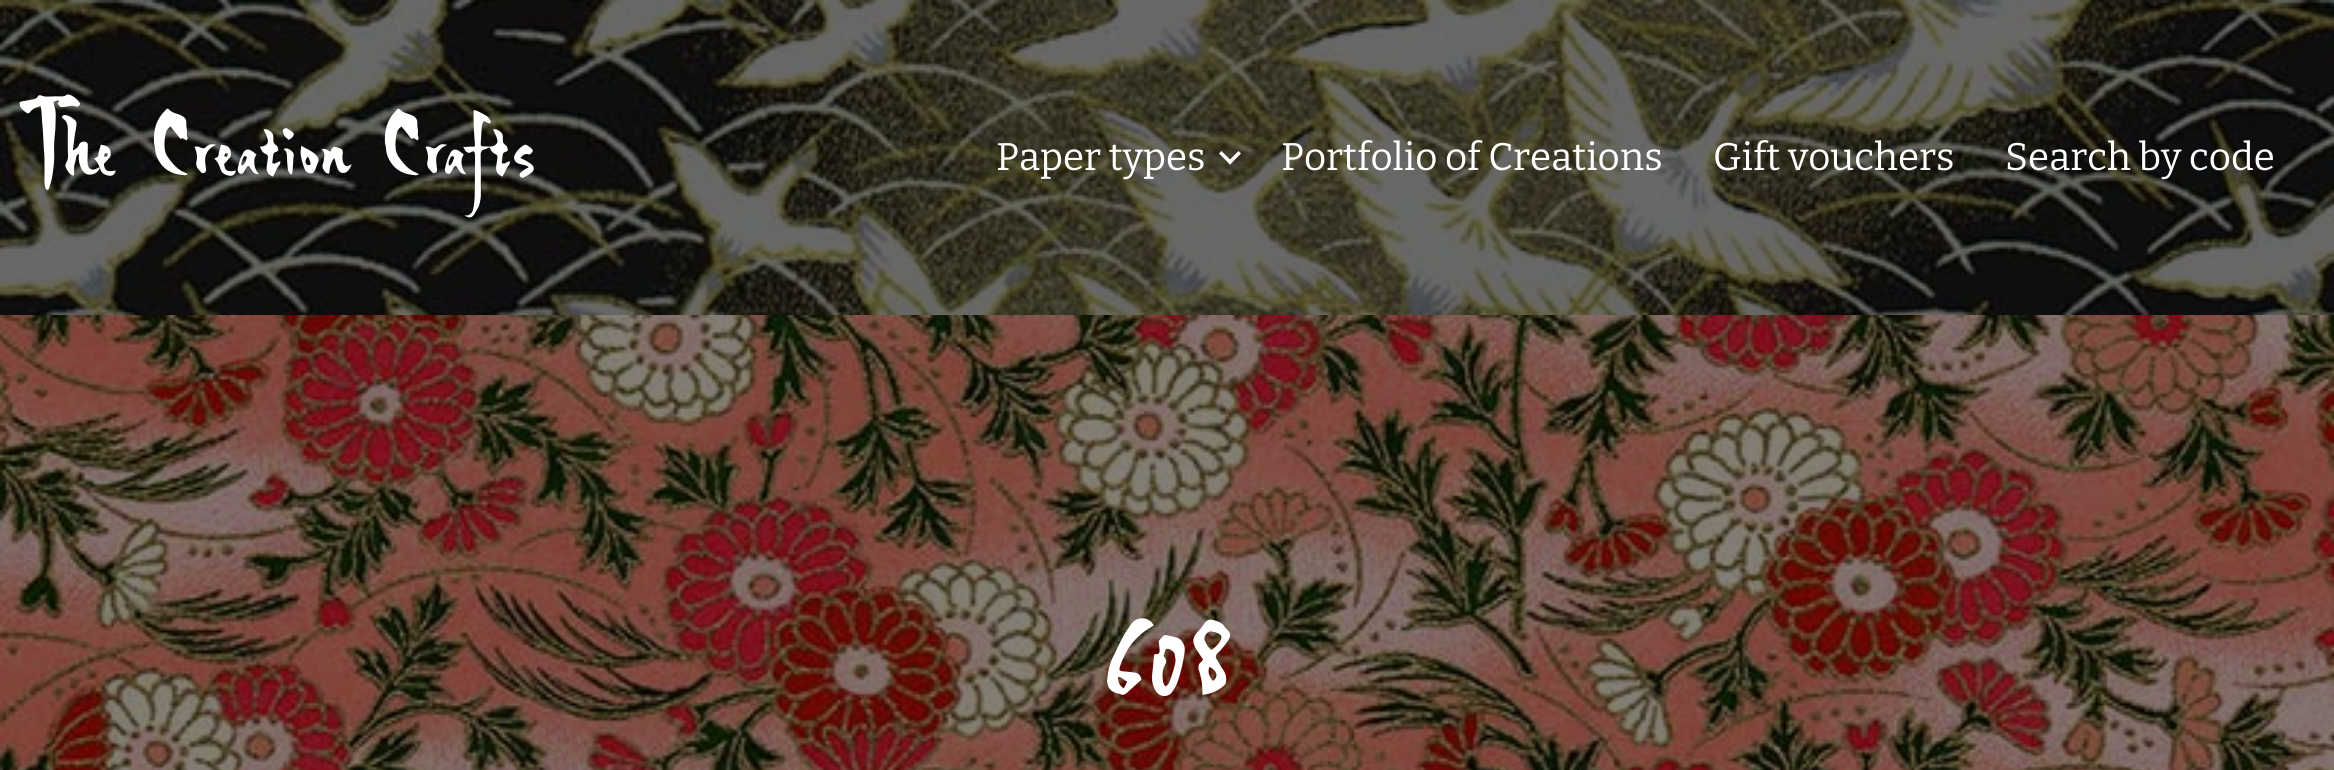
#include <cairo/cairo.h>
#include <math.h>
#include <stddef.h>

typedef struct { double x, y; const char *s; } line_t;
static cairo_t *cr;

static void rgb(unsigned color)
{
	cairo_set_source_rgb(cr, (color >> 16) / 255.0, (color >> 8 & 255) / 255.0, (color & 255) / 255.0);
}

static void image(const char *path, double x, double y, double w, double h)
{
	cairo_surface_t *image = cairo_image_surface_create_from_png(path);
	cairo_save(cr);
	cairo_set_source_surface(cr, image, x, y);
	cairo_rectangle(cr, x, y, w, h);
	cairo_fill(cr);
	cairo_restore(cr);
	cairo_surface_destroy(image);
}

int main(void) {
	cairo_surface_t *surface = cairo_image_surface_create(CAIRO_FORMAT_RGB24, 2334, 770);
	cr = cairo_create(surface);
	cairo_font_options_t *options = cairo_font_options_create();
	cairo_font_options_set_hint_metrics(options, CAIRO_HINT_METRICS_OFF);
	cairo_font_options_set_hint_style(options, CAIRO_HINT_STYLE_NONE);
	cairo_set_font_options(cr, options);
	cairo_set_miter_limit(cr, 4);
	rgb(0xffffff);
	cairo_paint(cr);
	image("img/1.png", 0, 0, 2334, 315);
	rgb(0xffffff);
	cairo_new_path(cr);
	cairo_move_to(cr, 1238.5, 151);
	cairo_line_to(cr, 1241, 153.5);
	cairo_line_to(cr, 1230, 164.5);
	cairo_line_to(cr, 1227.5, 162);
	cairo_close_path(cr);
	cairo_fill(cr);
	cairo_new_path(cr);
	cairo_move_to(cr, 1221.5, 151);
	cairo_line_to(cr, 1232.5, 162);
	cairo_line_to(cr, 1230, 164.5);
	cairo_line_to(cr, 1219, 153.5);
	cairo_close_path(cr);
	cairo_fill(cr);
	image("img/2.png", 0, 315, 2334, 455);
	cairo_select_font_face(cr, "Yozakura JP", CAIRO_FONT_SLANT_NORMAL, CAIRO_FONT_WEIGHT_NORMAL);
	cairo_set_font_size(cr, 63);
	cairo_move_to(cr, 35, 173);
	cairo_show_text(cr, "The Creation Crafts");
	cairo_select_font_face(cr, "Bitter", CAIRO_FONT_SLANT_NORMAL, CAIRO_FONT_WEIGHT_NORMAL);
	cairo_set_font_size(cr, 38.5);
	{
		static const line_t items[] = {
			{996, 170, "Paper types"},
			{1281, 170, "Portfolio of Creations"},
			{1713, 170, "Gift vouchers"},
			{2005, 170, "Search by code"},
		};
		for (size_t i = 0; i < sizeof items / sizeof *items; i++) {
			cairo_move_to(cr, items[i].x, items[i].y);
			cairo_show_text(cr, items[i].s);
		}
	}
	cairo_select_font_face(cr, "Yozakura JP", CAIRO_FONT_SLANT_NORMAL, CAIRO_FONT_WEIGHT_NORMAL);
	cairo_set_font_size(cr, 88);
	cairo_move_to(cr, 1102, 695);
	cairo_show_text(cr, "608");
	cairo_surface_write_to_png(surface, "page.png");
	cairo_font_options_destroy(options);
	cairo_destroy(cr);
	cairo_surface_destroy(surface);
	return 0;
}
